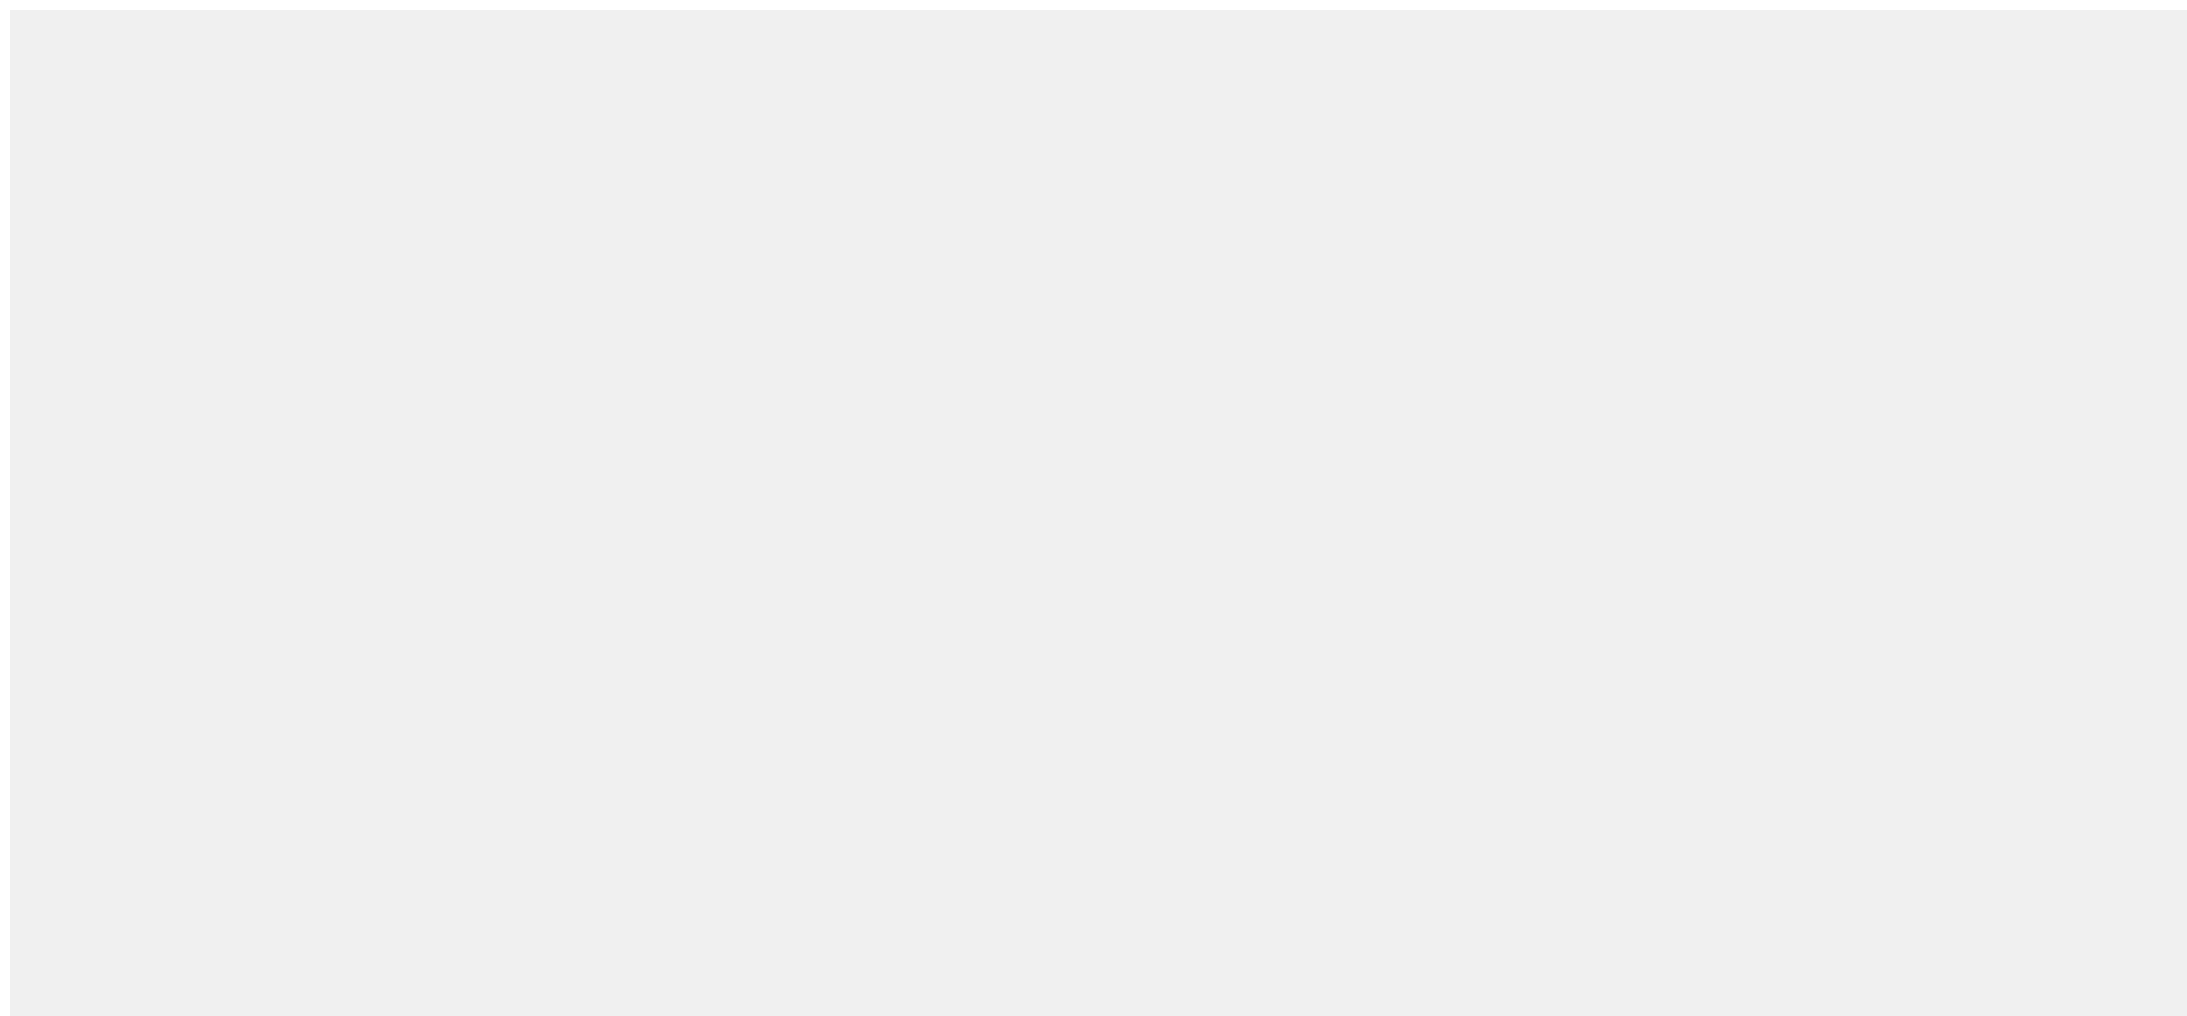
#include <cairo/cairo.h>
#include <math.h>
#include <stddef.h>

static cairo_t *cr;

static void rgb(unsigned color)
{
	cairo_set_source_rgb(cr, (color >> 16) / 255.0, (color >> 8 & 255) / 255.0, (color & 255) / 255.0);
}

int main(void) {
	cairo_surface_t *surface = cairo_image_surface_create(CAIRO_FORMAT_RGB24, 2187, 1016);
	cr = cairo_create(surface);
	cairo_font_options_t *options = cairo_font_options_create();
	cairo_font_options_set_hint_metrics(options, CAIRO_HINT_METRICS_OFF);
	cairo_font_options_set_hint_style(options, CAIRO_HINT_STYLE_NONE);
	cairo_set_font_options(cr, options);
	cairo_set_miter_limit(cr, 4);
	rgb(0xffffff);
	cairo_paint(cr);
	rgb(0xf0f0f0);
	cairo_rectangle(cr, 10, 10, 2177, 1006);
	cairo_fill(cr);
	cairo_surface_write_to_png(surface, "page.png");
	cairo_font_options_destroy(options);
	cairo_destroy(cr);
	cairo_surface_destroy(surface);
	return 0;
}
